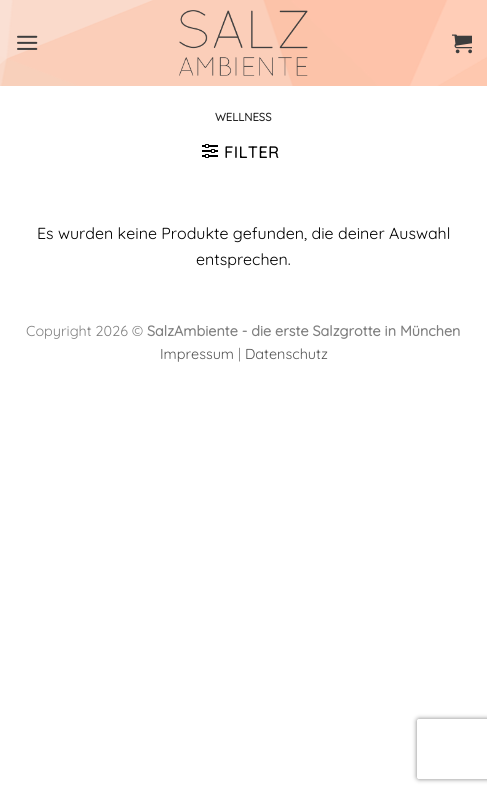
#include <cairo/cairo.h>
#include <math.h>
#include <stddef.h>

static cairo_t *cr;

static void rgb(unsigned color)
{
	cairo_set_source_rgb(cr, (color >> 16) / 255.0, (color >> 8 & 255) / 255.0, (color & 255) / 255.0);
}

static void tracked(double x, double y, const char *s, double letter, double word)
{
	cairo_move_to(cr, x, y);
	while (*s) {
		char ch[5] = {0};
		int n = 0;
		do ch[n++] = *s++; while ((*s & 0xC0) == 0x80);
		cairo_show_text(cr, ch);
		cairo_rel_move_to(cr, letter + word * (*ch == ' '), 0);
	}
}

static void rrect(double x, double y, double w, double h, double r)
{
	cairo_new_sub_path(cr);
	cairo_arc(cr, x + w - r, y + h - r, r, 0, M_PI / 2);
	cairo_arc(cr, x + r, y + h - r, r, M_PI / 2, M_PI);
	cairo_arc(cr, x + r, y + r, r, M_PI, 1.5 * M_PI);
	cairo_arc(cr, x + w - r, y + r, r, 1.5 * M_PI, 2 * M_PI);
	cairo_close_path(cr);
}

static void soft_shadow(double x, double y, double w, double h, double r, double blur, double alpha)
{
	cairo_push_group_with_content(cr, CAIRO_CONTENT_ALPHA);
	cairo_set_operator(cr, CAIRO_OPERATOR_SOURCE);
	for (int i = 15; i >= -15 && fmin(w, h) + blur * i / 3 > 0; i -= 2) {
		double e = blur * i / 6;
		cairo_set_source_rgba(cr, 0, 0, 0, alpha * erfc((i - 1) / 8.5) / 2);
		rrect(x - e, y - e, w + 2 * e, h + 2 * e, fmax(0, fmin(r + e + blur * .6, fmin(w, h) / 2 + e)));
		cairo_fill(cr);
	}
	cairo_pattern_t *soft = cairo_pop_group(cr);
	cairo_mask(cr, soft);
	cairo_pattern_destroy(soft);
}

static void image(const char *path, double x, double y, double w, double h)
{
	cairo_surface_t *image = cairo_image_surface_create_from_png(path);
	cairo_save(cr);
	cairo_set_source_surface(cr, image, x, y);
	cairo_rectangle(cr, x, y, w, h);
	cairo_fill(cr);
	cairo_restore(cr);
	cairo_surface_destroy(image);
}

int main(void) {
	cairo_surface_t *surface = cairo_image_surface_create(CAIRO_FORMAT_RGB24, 487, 793);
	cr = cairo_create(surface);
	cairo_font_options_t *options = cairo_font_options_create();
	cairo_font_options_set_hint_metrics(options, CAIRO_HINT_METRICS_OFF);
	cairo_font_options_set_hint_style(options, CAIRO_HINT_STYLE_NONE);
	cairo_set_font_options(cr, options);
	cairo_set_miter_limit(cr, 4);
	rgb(0xffffff);
	cairo_paint(cr);
	image("img/1.png", 0, 0, 487, 86);
	image("img/2.png", 17, 35, 21, 15);
	image("img/3.png", 179, 10, 129, 66);
	image("img/4.png", 452, 34, 20, 20);
	image("img/5.png", 202, 144, 16, 14);
	cairo_save(cr);
	cairo_set_fill_rule(cr, CAIRO_FILL_RULE_EVEN_ODD);
	cairo_new_path(cr);
	cairo_move_to(cr, 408, 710);
	cairo_line_to(cr, 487, 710);
	cairo_line_to(cr, 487, 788);
	cairo_line_to(cr, 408, 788);
	cairo_close_path(cr);
	cairo_move_to(cr, 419, 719);
	cairo_line_to(cr, 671, 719);
	cairo_curve_to(cr, 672, 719, 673, 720, 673, 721);
	cairo_line_to(cr, 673, 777);
	cairo_curve_to(cr, 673, 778, 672, 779, 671, 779);
	cairo_line_to(cr, 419, 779);
	cairo_curve_to(cr, 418, 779, 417, 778, 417, 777);
	cairo_line_to(cr, 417, 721);
	cairo_curve_to(cr, 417, 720, 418, 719, 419, 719);
	cairo_close_path(cr);
	cairo_clip(cr);
	rgb(0x808080);
	soft_shadow(417, 719, 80, 60, 2, 2.5, 1);
	cairo_restore(cr);
	cairo_select_font_face(cr, "Quicksand", CAIRO_FONT_SLANT_NORMAL, CAIRO_FONT_WEIGHT_BOLD);
	cairo_set_font_size(cr, 11.25);
	rgb(0x222222);
	cairo_move_to(cr, 215, 121);
	cairo_show_text(cr, "WELLNESS");
	cairo_set_font_size(cr, 16);
	rgb(0x000000);
	tracked(224, 158, "FILTER", 0.75, 0);
	cairo_select_font_face(cr, "Quicksand Light", CAIRO_FONT_SLANT_NORMAL, CAIRO_FONT_WEIGHT_NORMAL);
	cairo_move_to(cr, 37, 239);
	cairo_show_text(cr, "Es wurden keine Produkte gefunden, die deiner Auswahl");
	cairo_move_to(cr, 196, 265);
	cairo_show_text(cr, "entsprechen.");
	cairo_set_font_size(cr, 14.4);
	rgb(0x808080);
	cairo_move_to(cr, 26, 336);
	cairo_show_text(cr, "Copyright 2026 ©");
	cairo_select_font_face(cr, "Quicksand", CAIRO_FONT_SLANT_NORMAL, CAIRO_FONT_WEIGHT_BOLD);
	cairo_move_to(cr, 147, 336);
	cairo_show_text(cr, "SalzAmbiente - die erste Salzgrotte in München");
	cairo_select_font_face(cr, "Quicksand Light", CAIRO_FONT_SLANT_NORMAL, CAIRO_FONT_WEIGHT_NORMAL);
	rgb(0x545454);
	cairo_move_to(cr, 160, 359);
	cairo_show_text(cr, "Impressum");
	rgb(0x808080);
	cairo_move_to(cr, 238, 359);
	cairo_show_text(cr, "|");
	rgb(0x545454);
	cairo_move_to(cr, 245, 359);
	cairo_show_text(cr, "Datenschutz");
	cairo_surface_write_to_png(surface, "page.png");
	cairo_font_options_destroy(options);
	cairo_destroy(cr);
	cairo_surface_destroy(surface);
	return 0;
}
